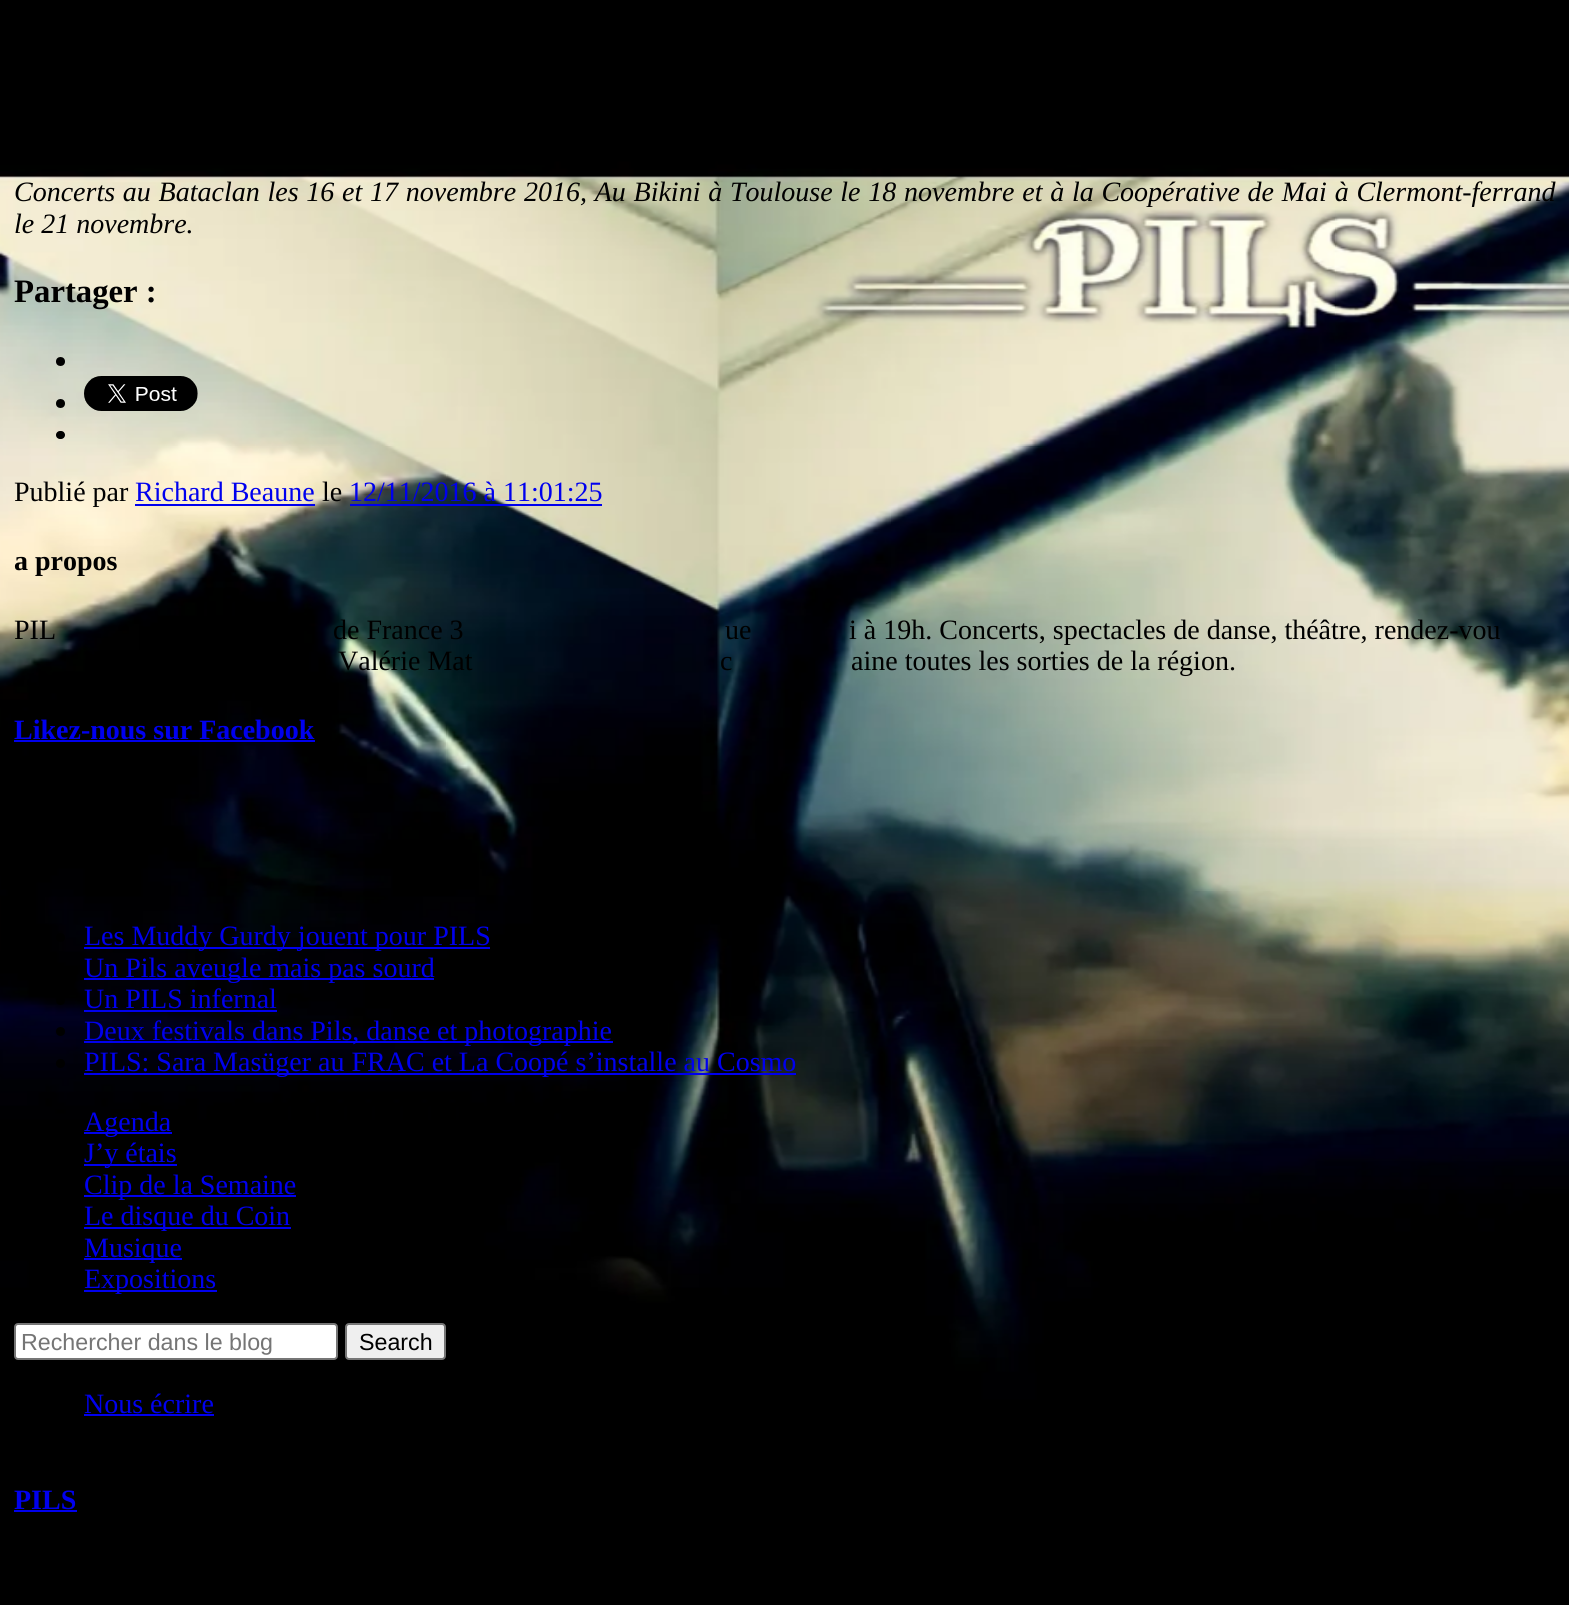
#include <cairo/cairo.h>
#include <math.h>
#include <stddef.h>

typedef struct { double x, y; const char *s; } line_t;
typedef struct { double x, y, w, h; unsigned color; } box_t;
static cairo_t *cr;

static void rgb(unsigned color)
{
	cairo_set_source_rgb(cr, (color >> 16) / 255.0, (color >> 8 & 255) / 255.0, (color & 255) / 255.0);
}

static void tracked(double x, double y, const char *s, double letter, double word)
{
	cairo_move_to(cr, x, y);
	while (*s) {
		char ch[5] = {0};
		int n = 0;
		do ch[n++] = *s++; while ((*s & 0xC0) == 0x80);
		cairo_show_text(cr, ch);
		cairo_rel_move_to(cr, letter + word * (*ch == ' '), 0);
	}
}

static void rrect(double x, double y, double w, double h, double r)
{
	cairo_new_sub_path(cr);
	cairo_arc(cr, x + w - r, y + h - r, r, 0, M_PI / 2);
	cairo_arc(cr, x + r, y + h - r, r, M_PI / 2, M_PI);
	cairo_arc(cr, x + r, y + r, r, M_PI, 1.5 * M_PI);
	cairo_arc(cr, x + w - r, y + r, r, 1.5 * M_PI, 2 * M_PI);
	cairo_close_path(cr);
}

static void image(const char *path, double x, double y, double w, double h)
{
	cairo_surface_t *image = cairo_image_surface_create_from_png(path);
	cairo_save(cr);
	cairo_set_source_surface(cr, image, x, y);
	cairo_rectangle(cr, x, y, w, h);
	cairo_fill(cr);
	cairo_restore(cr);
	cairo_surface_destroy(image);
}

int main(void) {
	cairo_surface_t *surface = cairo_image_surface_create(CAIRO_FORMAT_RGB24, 1569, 1605);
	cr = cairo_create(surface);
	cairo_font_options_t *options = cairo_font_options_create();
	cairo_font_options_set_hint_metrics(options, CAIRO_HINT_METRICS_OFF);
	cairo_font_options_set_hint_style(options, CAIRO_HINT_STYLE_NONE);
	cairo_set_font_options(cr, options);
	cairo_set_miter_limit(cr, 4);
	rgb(0xffffff);
	cairo_paint(cr);
	image("img/1.png", 0, 0, 1569, 1605);
	rgb(0x000000);
	cairo_arc(cr, 60.5, 361.5, 4.5, 0, 2 * M_PI);
	cairo_fill(cr);
	cairo_arc(cr, 60.5, 403.5, 4.5, 0, 2 * M_PI);
	cairo_fill(cr);
	image("img/2.png", 84, 376, 114, 35);
	rrect(56, 431, 9, 8, 4);
	cairo_fill(cr);
	{
		static const box_t items[] = {
			{135, 504, 180, 2, 0x0000ee},
			{350, 504, 252, 2, 0x0000ee},
			{14, 740, 301, 2, 0x0000ee},
		};
		for (size_t i = 0; i < sizeof items / sizeof *items; i++) {
			rgb(items[i].color);
			cairo_rectangle(cr, items[i].x, items[i].y, items[i].w, items[i].h);
			cairo_fill(cr);
		}
	}
	rgb(0x000000);
	cairo_arc(cr, 60.5, 937.5, 4.5, 0, 2 * M_PI);
	cairo_fill(cr);
	rgb(0x0000ee);
	cairo_rectangle(cr, 84, 947, 406, 2);
	cairo_fill(cr);
	cairo_rectangle(cr, 84, 978, 350, 2);
	cairo_fill(cr);
	rgb(0x000000);
	cairo_arc(cr, 60.5, 1000.5, 4.5, 0, 2 * M_PI);
	cairo_fill(cr);
	rgb(0x0000ee);
	cairo_rectangle(cr, 84, 1010, 193, 2);
	cairo_fill(cr);
	rgb(0x000000);
	cairo_arc(cr, 60.5, 1031.5, 4.5, 0, 2 * M_PI);
	cairo_fill(cr);
	rgb(0x0000ee);
	cairo_rectangle(cr, 84, 1041, 529, 2);
	cairo_fill(cr);
	rgb(0x000000);
	cairo_arc(cr, 60.5, 1063.5, 4.5, 0, 2 * M_PI);
	cairo_fill(cr);
	{
		static const box_t items[] = {
			{84, 1073, 712, 2, 0x0000ee},
			{84, 1132, 88, 2, 0x0000ee},
			{84, 1164, 93, 2, 0x0000ee},
			{84, 1195, 212, 2, 0x0000ee},
			{84, 1227, 207, 2, 0x0000ee},
			{84, 1258, 98, 2, 0x0000ee},
			{84, 1290, 133, 2, 0x0000ee},
		};
		for (size_t i = 0; i < sizeof items / sizeof *items; i++) {
			rgb(items[i].color);
			cairo_rectangle(cr, items[i].x, items[i].y, items[i].w, items[i].h);
			cairo_fill(cr);
		}
	}
	rgb(0xffffff);
	rrect(15, 1324, 322, 35, 3);
	cairo_fill_preserve(cr);
	rgb(0x767676);
	cairo_stroke(cr);
	rgb(0xefefef);
	rrect(346, 1324, 99, 35, 3);
	cairo_fill_preserve(cr);
	rgb(0x767676);
	cairo_stroke(cr);
	rgb(0x0000ee);
	cairo_rectangle(cr, 84, 1414, 130, 2);
	cairo_fill(cr);
	cairo_rectangle(cr, 14, 1510, 63, 2);
	cairo_fill(cr);
	cairo_select_font_face(cr, "Liberation Serif", CAIRO_FONT_SLANT_ITALIC, CAIRO_FONT_WEIGHT_NORMAL);
	cairo_set_font_size(cr, 28);
	rgb(0x000000);
	tracked(14, 201, "Concerts au Bataclan les 16 et 17 novembre 2016, Au Bikini à Toulouse le 18 novembre et à la Coopérative de Mai à Clermont-ferrand", 0, 0.75);
	cairo_move_to(cr, 14, 233);
	cairo_show_text(cr, "le 21 novembre.");
	cairo_select_font_face(cr, "Liberation Serif", CAIRO_FONT_SLANT_NORMAL, CAIRO_FONT_WEIGHT_BOLD);
	cairo_set_font_size(cr, 32.75);
	cairo_move_to(cr, 14, 302);
	cairo_show_text(cr, "Partager :");
	cairo_select_font_face(cr, "Liberation Serif", CAIRO_FONT_SLANT_NORMAL, CAIRO_FONT_WEIGHT_NORMAL);
	cairo_set_font_size(cr, 28);
	cairo_move_to(cr, 14, 501);
	cairo_show_text(cr, "Publié par");
	rgb(0x0000ee);
	cairo_move_to(cr, 135, 501);
	cairo_show_text(cr, "Richard Beaune");
	rgb(0x000000);
	cairo_move_to(cr, 322, 501);
	cairo_show_text(cr, "le");
	rgb(0x0000ee);
	cairo_move_to(cr, 349, 501);
	cairo_show_text(cr, "12/11/2016 à 11:01:25");
	cairo_select_font_face(cr, "Liberation Serif", CAIRO_FONT_SLANT_NORMAL, CAIRO_FONT_WEIGHT_BOLD);
	rgb(0x000000);
	cairo_move_to(cr, 14, 570);
	cairo_show_text(cr, "a propos");
	cairo_select_font_face(cr, "Liberation Serif", CAIRO_FONT_SLANT_NORMAL, CAIRO_FONT_WEIGHT_NORMAL);
	{
		static const line_t items[] = {
			{14, 639, "PIL"},
			{333, 639, "de France 3"},
			{725, 639, "ue"},
			{849, 639, "i à 19h. Concerts, spectacles de danse, théâtre, rendez-vou"},
			{338, 670, "Valérie Mat"},
			{720, 670, "c"},
			{851, 670, "aine toutes les sorties de la région."},
		};
		for (size_t i = 0; i < sizeof items / sizeof *items; i++) {
			cairo_move_to(cr, items[i].x, items[i].y);
			cairo_show_text(cr, items[i].s);
		}
	}
	cairo_select_font_face(cr, "Liberation Serif", CAIRO_FONT_SLANT_NORMAL, CAIRO_FONT_WEIGHT_BOLD);
	rgb(0x0000ee);
	cairo_move_to(cr, 14, 739);
	cairo_show_text(cr, "Likez-nous sur Facebook");
	cairo_select_font_face(cr, "Liberation Serif", CAIRO_FONT_SLANT_NORMAL, CAIRO_FONT_WEIGHT_NORMAL);
	{
		static const line_t items[] = {
			{84, 945, "Les Muddy Gurdy jouent pour PILS"},
			{84, 977, "Un Pils aveugle mais pas sourd"},
			{84, 1008, "Un PILS infernal"},
			{84, 1040, "Deux festivals dans Pils, danse et photographie"},
			{84, 1071, "PILS: Sara Masüger au FRAC et La Coopé s’installe au Cosmo"},
			{84, 1131, "Agenda"},
			{84, 1162, "J’y étais"},
			{84, 1194, "Clip de la Semaine"},
			{84, 1225, "Le disque du Coin"},
			{84, 1257, "Musique"},
			{84, 1288, "Expositions"},
		};
		for (size_t i = 0; i < sizeof items / sizeof *items; i++) {
			cairo_move_to(cr, items[i].x, items[i].y);
			cairo_show_text(cr, items[i].s);
		}
	}
	cairo_select_font_face(cr, "Liberation Sans", CAIRO_FONT_SLANT_NORMAL, CAIRO_FONT_WEIGHT_NORMAL);
	cairo_set_font_size(cr, 23.25);
	rgb(0x757575);
	cairo_move_to(cr, 21, 1350);
	cairo_show_text(cr, "Rechercher dans le blog");
	rgb(0x000000);
	cairo_move_to(cr, 359, 1350);
	cairo_show_text(cr, "Search");
	cairo_select_font_face(cr, "Liberation Serif", CAIRO_FONT_SLANT_NORMAL, CAIRO_FONT_WEIGHT_NORMAL);
	cairo_set_font_size(cr, 28);
	rgb(0x0000ee);
	cairo_move_to(cr, 84, 1413);
	cairo_show_text(cr, "Nous écrire");
	cairo_select_font_face(cr, "Liberation Serif", CAIRO_FONT_SLANT_NORMAL, CAIRO_FONT_WEIGHT_BOLD);
	cairo_move_to(cr, 14, 1509);
	cairo_show_text(cr, "PILS");
	cairo_surface_write_to_png(surface, "page.png");
	cairo_font_options_destroy(options);
	cairo_destroy(cr);
	cairo_surface_destroy(surface);
	return 0;
}
